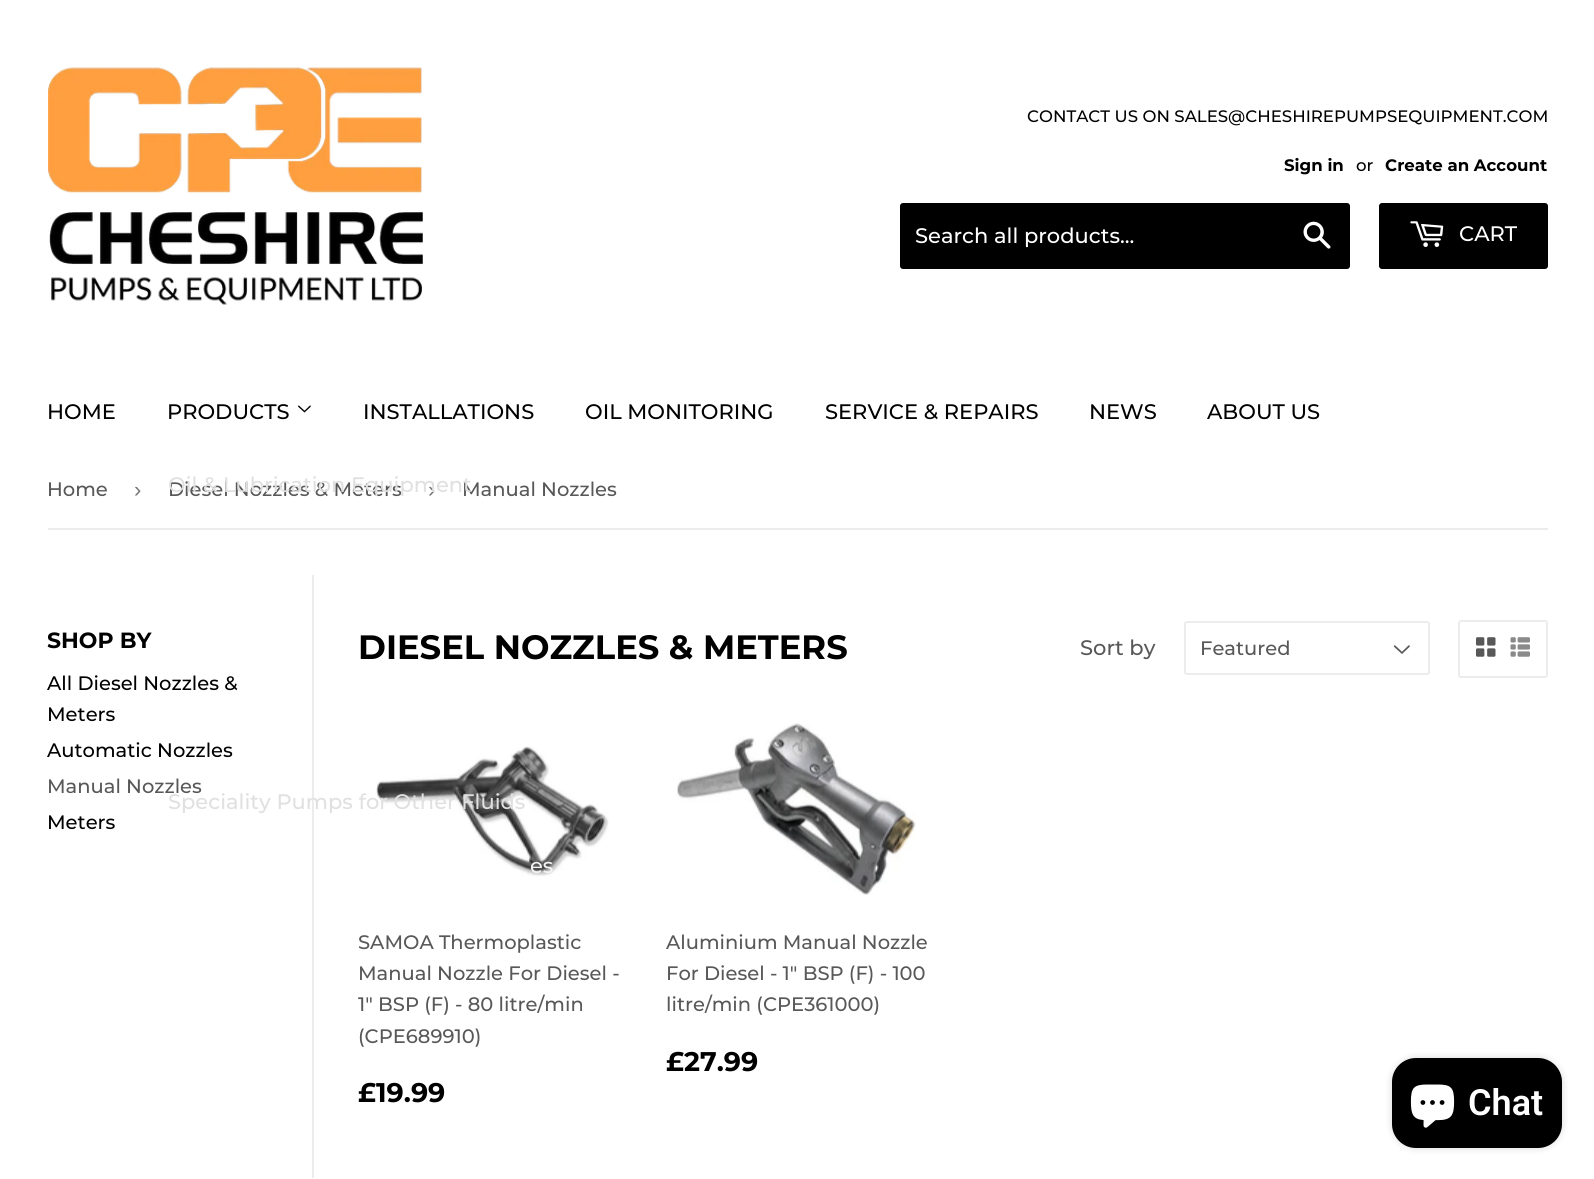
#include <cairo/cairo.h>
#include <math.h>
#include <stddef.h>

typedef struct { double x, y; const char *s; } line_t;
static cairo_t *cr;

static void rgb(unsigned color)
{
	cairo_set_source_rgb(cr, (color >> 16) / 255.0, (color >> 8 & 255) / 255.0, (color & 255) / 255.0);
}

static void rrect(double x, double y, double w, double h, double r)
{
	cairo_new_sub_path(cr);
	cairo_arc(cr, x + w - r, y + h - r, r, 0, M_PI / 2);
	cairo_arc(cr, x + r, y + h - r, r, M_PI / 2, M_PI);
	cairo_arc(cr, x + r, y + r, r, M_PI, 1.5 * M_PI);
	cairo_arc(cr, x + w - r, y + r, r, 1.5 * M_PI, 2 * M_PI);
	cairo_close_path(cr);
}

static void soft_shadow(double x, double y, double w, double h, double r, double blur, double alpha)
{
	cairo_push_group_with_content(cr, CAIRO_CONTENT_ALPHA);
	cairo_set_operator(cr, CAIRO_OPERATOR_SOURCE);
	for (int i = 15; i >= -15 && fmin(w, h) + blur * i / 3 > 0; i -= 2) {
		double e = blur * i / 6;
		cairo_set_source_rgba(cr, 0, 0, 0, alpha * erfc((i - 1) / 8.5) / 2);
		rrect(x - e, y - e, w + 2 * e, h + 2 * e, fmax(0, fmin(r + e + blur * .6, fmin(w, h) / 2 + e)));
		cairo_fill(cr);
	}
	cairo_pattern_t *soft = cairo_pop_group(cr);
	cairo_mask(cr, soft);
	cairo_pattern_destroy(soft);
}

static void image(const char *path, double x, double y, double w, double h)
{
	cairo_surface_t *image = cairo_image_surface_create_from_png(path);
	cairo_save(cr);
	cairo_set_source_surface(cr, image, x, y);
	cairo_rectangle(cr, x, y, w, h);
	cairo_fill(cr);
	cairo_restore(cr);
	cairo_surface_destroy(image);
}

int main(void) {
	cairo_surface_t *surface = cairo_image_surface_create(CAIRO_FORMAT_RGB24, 1594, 1179);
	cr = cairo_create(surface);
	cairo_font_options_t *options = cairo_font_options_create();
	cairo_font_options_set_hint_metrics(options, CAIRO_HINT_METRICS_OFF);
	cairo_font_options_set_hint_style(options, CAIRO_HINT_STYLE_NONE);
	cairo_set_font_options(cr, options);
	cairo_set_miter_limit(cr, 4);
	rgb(0xffffff);
	cairo_paint(cr);
	image("img/1.png", 48, 67, 375, 238);
	rgb(0x000000);
	rrect(900, 203, 450, 66, 3);
	cairo_fill(cr);
	image("img/2.png", 1303, 221, 28, 28);
	rrect(1379, 203, 169, 66, 3);
	cairo_fill(cr);
	image("img/3.png", 1410, 221, 34, 26);
	image("img/4.png", 298, 405, 13, 8);
	rgb(0xececec);
	cairo_rectangle(cr, 48, 528, 1500, 2);
	cairo_fill(cr);
	cairo_rectangle(cr, 312, 575, 2, 603);
	cairo_fill(cr);
	image("img/5.png", 1393, 645, 17, 9);
	rrect(1185, 622, 244, 52, 2);
	cairo_stroke(cr);
	rrect(1459, 621, 88, 56, 2);
	cairo_stroke(cr);
	image("img/6.png", 1476, 637, 20, 20);
	image("img/7.png", 1510, 637, 20, 20);
	image("img/8.png", 376, 746, 233, 130);
	image("img/9.png", 677, 723, 239, 172);
	rgb(0x000000);
	soft_shadow(1392, 1058, 170, 90, 24, 4, 0.15);
	rgb(0x000000);
	rrect(1392, 1058, 170, 90, 24);
	cairo_fill(cr);
	image("img/10.png", 1410, 1084, 45, 44);
	cairo_select_font_face(cr, "Montserrat Medium", CAIRO_FONT_SLANT_NORMAL, CAIRO_FONT_WEIGHT_NORMAL);
	cairo_set_font_size(cr, 16.6);
	cairo_move_to(cr, 1027, 122);
	cairo_show_text(cr, "CONTACT US ON SALES@CHESHIREPUMPSEQUIPMENT.COM");
	cairo_select_font_face(cr, "Montserrat", CAIRO_FONT_SLANT_NORMAL, CAIRO_FONT_WEIGHT_BOLD);
	cairo_move_to(cr, 1284, 171);
	cairo_show_text(cr, "Sign in");
	cairo_select_font_face(cr, "Montserrat Medium", CAIRO_FONT_SLANT_NORMAL, CAIRO_FONT_WEIGHT_NORMAL);
	cairo_move_to(cr, 1356, 171);
	cairo_show_text(cr, "or");
	cairo_select_font_face(cr, "Montserrat", CAIRO_FONT_SLANT_NORMAL, CAIRO_FONT_WEIGHT_BOLD);
	cairo_move_to(cr, 1385, 171);
	cairo_show_text(cr, "Create an Account");
	cairo_select_font_face(cr, "Montserrat Medium", CAIRO_FONT_SLANT_NORMAL, CAIRO_FONT_WEIGHT_NORMAL);
	cairo_set_font_size(cr, 21);
	rgb(0xffffff);
	cairo_move_to(cr, 915, 243);
	cairo_show_text(cr, "Search all products...");
	cairo_move_to(cr, 1459, 241);
	cairo_show_text(cr, "CART");
	rgb(0x000000);
	cairo_move_to(cr, 47, 419);
	cairo_show_text(cr, "HOME");
	cairo_move_to(cr, 167, 419);
	cairo_show_text(cr, "PRODUCTS");
	rgb(0xe0e0e0);
	cairo_move_to(cr, 168, 809);
	cairo_show_text(cr, "Speciality Pumps for Other Fluids");
	rgb(0xf3f3f3);
	cairo_move_to(cr, 530, 873);
	cairo_show_text(cr, "es");
	rgb(0x000000);
	{
		static const line_t items[] = {
			{363, 419, "INSTALLATIONS"},
			{585, 419, "OIL MONITORING"},
			{825, 419, "SERVICE & REPAIRS"},
			{1089, 419, "NEWS"},
			{1207, 419, "ABOUT US"},
		};
		for (size_t i = 0; i < sizeof items / sizeof *items; i++) {
			cairo_move_to(cr, items[i].x, items[i].y);
			cairo_show_text(cr, items[i].s);
		}
	}
	cairo_set_font_size(cr, 19.5);
	rgb(0x585858);
	cairo_move_to(cr, 47, 496);
	cairo_show_text(cr, "Home");
	cairo_select_font_face(cr, "Liberation Sans", CAIRO_FONT_SLANT_NORMAL, CAIRO_FONT_WEIGHT_NORMAL);
	cairo_set_font_size(cr, 22);
	rgb(0x767676);
	cairo_move_to(cr, 134, 497);
	cairo_show_text(cr, "›");
	cairo_select_font_face(cr, "Montserrat Medium", CAIRO_FONT_SLANT_NORMAL, CAIRO_FONT_WEIGHT_NORMAL);
	cairo_set_font_size(cr, 19.5);
	rgb(0x585858);
	cairo_move_to(cr, 168, 496);
	cairo_show_text(cr, "Diesel Nozzles & Meters");
	cairo_select_font_face(cr, "Liberation Sans", CAIRO_FONT_SLANT_NORMAL, CAIRO_FONT_WEIGHT_NORMAL);
	cairo_set_font_size(cr, 22);
	rgb(0x767676);
	cairo_move_to(cr, 428, 497);
	cairo_show_text(cr, "›");
	cairo_select_font_face(cr, "Montserrat Medium", CAIRO_FONT_SLANT_NORMAL, CAIRO_FONT_WEIGHT_NORMAL);
	cairo_set_font_size(cr, 19.5);
	rgb(0x585858);
	cairo_move_to(cr, 462, 496);
	cairo_show_text(cr, "Manual Nozzles");
	cairo_set_font_size(cr, 21);
	rgb(0xe0e0e0);
	cairo_move_to(cr, 168, 492);
	cairo_show_text(cr, "Oil & Lubrication Equipment");
	cairo_select_font_face(cr, "Montserrat", CAIRO_FONT_SLANT_NORMAL, CAIRO_FONT_WEIGHT_BOLD);
	cairo_set_font_size(cr, 22);
	rgb(0x000000);
	cairo_move_to(cr, 47, 648);
	cairo_show_text(cr, "SHOP BY");
	cairo_select_font_face(cr, "Montserrat Medium", CAIRO_FONT_SLANT_NORMAL, CAIRO_FONT_WEIGHT_NORMAL);
	cairo_set_font_size(cr, 19.5);
	{
		static const line_t items[] = {
			{47, 690, "All Diesel Nozzles &"},
			{47, 721, "Meters"},
			{47, 757, "Automatic Nozzles"},
		};
		for (size_t i = 0; i < sizeof items / sizeof *items; i++) {
			cairo_move_to(cr, items[i].x, items[i].y);
			cairo_show_text(cr, items[i].s);
		}
	}
	rgb(0x585858);
	cairo_move_to(cr, 47, 793);
	cairo_show_text(cr, "Manual Nozzles");
	rgb(0x000000);
	cairo_move_to(cr, 47, 829);
	cairo_show_text(cr, "Meters");
	cairo_select_font_face(cr, "Montserrat", CAIRO_FONT_SLANT_NORMAL, CAIRO_FONT_WEIGHT_BOLD);
	cairo_set_font_size(cr, 33.75);
	cairo_move_to(cr, 358, 659);
	cairo_show_text(cr, "DIESEL NOZZLES & METERS");
	cairo_select_font_face(cr, "Montserrat Medium", CAIRO_FONT_SLANT_NORMAL, CAIRO_FONT_WEIGHT_NORMAL);
	cairo_set_font_size(cr, 21);
	rgb(0x585858);
	cairo_move_to(cr, 1080, 655);
	cairo_show_text(cr, "Sort by");
	cairo_set_font_size(cr, 19.5);
	{
		static const line_t items[] = {
			{1200, 655, "Featured"},
			{358, 949, "SAMOA Thermoplastic"},
			{358, 980, "Manual Nozzle For Diesel -"},
			{358, 1011, "1\" BSP (F) - 80 litre/min"},
			{358, 1043, "(CPE689910)"},
		};
		for (size_t i = 0; i < sizeof items / sizeof *items; i++) {
			cairo_move_to(cr, items[i].x, items[i].y);
			cairo_show_text(cr, items[i].s);
		}
	}
	cairo_select_font_face(cr, "Montserrat", CAIRO_FONT_SLANT_NORMAL, CAIRO_FONT_WEIGHT_BOLD);
	cairo_set_font_size(cr, 27);
	rgb(0x000000);
	cairo_move_to(cr, 358, 1102);
	cairo_show_text(cr, "£19.99");
	cairo_select_font_face(cr, "Montserrat Medium", CAIRO_FONT_SLANT_NORMAL, CAIRO_FONT_WEIGHT_NORMAL);
	cairo_set_font_size(cr, 19.5);
	rgb(0x585858);
	{
		static const line_t items[] = {
			{666, 949, "Aluminium Manual Nozzle"},
			{666, 980, "For Diesel - 1\" BSP (F) - 100"},
			{666, 1011, "litre/min (CPE361000)"},
		};
		for (size_t i = 0; i < sizeof items / sizeof *items; i++) {
			cairo_move_to(cr, items[i].x, items[i].y);
			cairo_show_text(cr, items[i].s);
		}
	}
	cairo_select_font_face(cr, "Montserrat", CAIRO_FONT_SLANT_NORMAL, CAIRO_FONT_WEIGHT_BOLD);
	cairo_set_font_size(cr, 27);
	rgb(0x000000);
	cairo_move_to(cr, 666, 1071);
	cairo_show_text(cr, "£27.99");
	cairo_select_font_face(cr, "Roboto SemiBold", CAIRO_FONT_SLANT_NORMAL, CAIRO_FONT_WEIGHT_NORMAL);
	cairo_set_font_size(cr, 36);
	rgb(0xffffff);
	cairo_move_to(cr, 1468, 1115);
	cairo_show_text(cr, "Chat");
	cairo_surface_write_to_png(surface, "page.png");
	cairo_font_options_destroy(options);
	cairo_destroy(cr);
	cairo_surface_destroy(surface);
	return 0;
}
